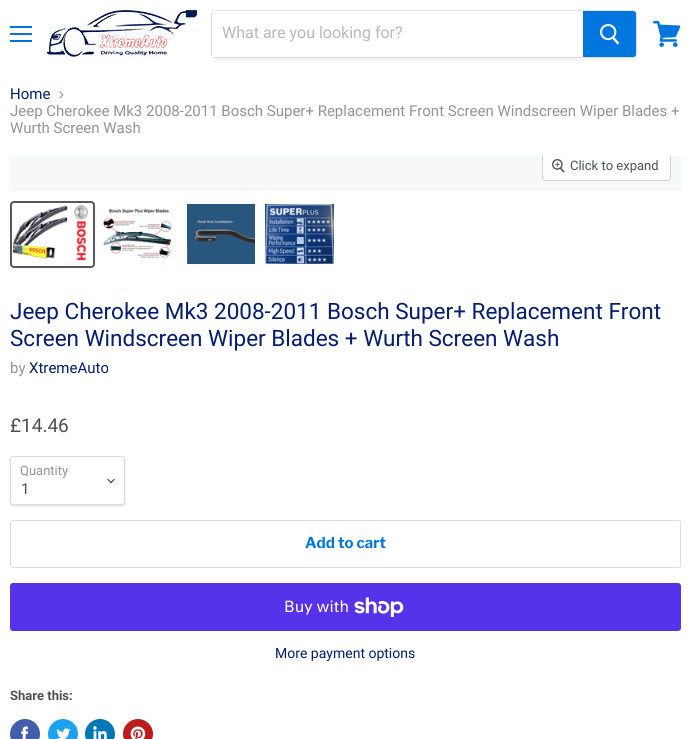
#include <cairo/cairo.h>
#include <math.h>
#include <stddef.h>

typedef struct { double x, y, w, h; unsigned color; } box_t;
static cairo_t *cr;

static void rgb(unsigned color)
{
	cairo_set_source_rgb(cr, (color >> 16) / 255.0, (color >> 8 & 255) / 255.0, (color & 255) / 255.0);
}

static void rrect(double x, double y, double w, double h, double r)
{
	cairo_new_sub_path(cr);
	cairo_arc(cr, x + w - r, y + h - r, r, 0, M_PI / 2);
	cairo_arc(cr, x + r, y + h - r, r, M_PI / 2, M_PI);
	cairo_arc(cr, x + r, y + r, r, M_PI, 1.5 * M_PI);
	cairo_arc(cr, x + w - r, y + r, r, 1.5 * M_PI, 2 * M_PI);
	cairo_close_path(cr);
}

static void soft_shadow(double x, double y, double w, double h, double r, double blur, double alpha)
{
	cairo_push_group_with_content(cr, CAIRO_CONTENT_ALPHA);
	cairo_set_operator(cr, CAIRO_OPERATOR_SOURCE);
	for (int i = 15; i >= -15 && fmin(w, h) + blur * i / 3 > 0; i -= 2) {
		double e = blur * i / 6;
		cairo_set_source_rgba(cr, 0, 0, 0, alpha * erfc((i - 1) / 8.5) / 2);
		rrect(x - e, y - e, w + 2 * e, h + 2 * e, fmax(0, fmin(r + e + blur * .6, fmin(w, h) / 2 + e)));
		cairo_fill(cr);
	}
	cairo_pattern_t *soft = cairo_pop_group(cr);
	cairo_mask(cr, soft);
	cairo_pattern_destroy(soft);
}

static void image(const char *path, double x, double y, double w, double h)
{
	cairo_surface_t *image = cairo_image_surface_create_from_png(path);
	cairo_save(cr);
	cairo_set_source_surface(cr, image, x, y);
	cairo_rectangle(cr, x, y, w, h);
	cairo_fill(cr);
	cairo_restore(cr);
	cairo_surface_destroy(image);
}

int main(void) {
	cairo_surface_t *surface = cairo_image_surface_create(CAIRO_FORMAT_RGB24, 691, 739);
	cr = cairo_create(surface);
	cairo_font_options_t *options = cairo_font_options_create();
	cairo_font_options_set_hint_metrics(options, CAIRO_HINT_METRICS_OFF);
	cairo_font_options_set_hint_style(options, CAIRO_HINT_STYLE_NONE);
	cairo_set_font_options(cr, options);
	cairo_set_miter_limit(cr, 4);
	rgb(0xffffff);
	cairo_paint(cr);
	{
		static const box_t items[] = {
			{10, 26, 22, 2, 0x0075dd},
			{10, 33, 22, 2, 0x0075dd},
			{10, 40, 22, 2, 0x0075dd},
		};
		for (size_t i = 0; i < sizeof items / sizeof *items; i++) {
			rgb(items[i].color);
			cairo_rectangle(cr, items[i].x, items[i].y, items[i].w, items[i].h);
			cairo_fill(cr);
		}
	}
	image("img/1.png", 47, 10, 150, 47);
	rgb(0x7f7f7f);
	soft_shadow(211, 12, 426, 48, 4, 1.5, 0.11);
	rrect(211.5, 10.5, 425, 47, 3.5);
	cairo_set_source_rgba(cr, 0.498, 0.498, 0.498, 0.2);
	cairo_set_line_width(cr, 1);
	cairo_stroke(cr);
	rgb(0xffffff);
	cairo_rectangle(cr, 212, 11, 371, 46);
	cairo_fill(cr);
	rgb(0x0076de);
	cairo_new_path(cr);
	cairo_move_to(cr, 583.5, 11.5);
	cairo_line_to(cr, 633, 11.5);
	cairo_curve_to(cr, 634.5, 11.5, 635.5, 12.5, 635.5, 14);
	cairo_line_to(cr, 635.5, 54);
	cairo_curve_to(cr, 635.5, 55.5, 634.5, 56.5, 633, 56.5);
	cairo_line_to(cr, 583.5, 56.5);
	cairo_close_path(cr);
	cairo_fill_preserve(cr);
	cairo_stroke(cr);
	image("img/2.png", 600, 24, 20, 21);
	image("img/3.png", 653, 21, 28, 26);
	image("img/4.png", 59, 91, 5, 8);
	rgb(0xf7f8f8);
	cairo_rectangle(cr, 10, 156, 671, 35);
	cairo_fill(cr);
	cairo_save(cr);
	cairo_rectangle(cr, 10, 156, 671, 35);
	cairo_clip(cr);
	rrect(542.5, 151.5, 128, 29, 3.5);
	rgb(0xd2d3d3);
	cairo_stroke(cr);
	cairo_restore(cr);
	cairo_set_source_rgba(cr, 1, 1, 1, 0.9);
	cairo_new_path(cr);
	cairo_move_to(cr, 543, 156);
	cairo_line_to(cr, 670, 156);
	cairo_line_to(cr, 670, 177);
	cairo_curve_to(cr, 670, 178.5, 668.5, 180, 667, 180);
	cairo_line_to(cr, 546, 180);
	cairo_curve_to(cr, 544.5, 180, 543, 178.5, 543, 177);
	cairo_close_path(cr);
	cairo_fill(cr);
	image("img/5.png", 552, 159, 13, 14);
	rrect(11, 202, 83, 65, 3);
	rgb(0x585858);
	cairo_set_line_width(cr, 2);
	cairo_stroke(cr);
	image("img/6.png", 13, 204, 77, 58);
	image("img/7.png", 101, 207, 71, 52);
	image("img/8.png", 187, 204, 68, 60);
	image("img/9.png", 265, 204, 69, 60);
	rgb(0x000000);
	soft_shadow(10, 457, 115, 49, 3, 1, 0.15);
	rgb(0xffffff);
	rrect(10.5, 456.5, 114, 48, 2.5);
	cairo_fill_preserve(cr);
	rgb(0xdddddd);
	cairo_set_line_width(cr, 1);
	cairo_stroke(cr);
	image("img/10.png", 107, 478, 8, 6);
	rrect(10.5, 520.5, 670, 47, 2.5);
	cairo_stroke(cr);
	rgb(0x5433eb);
	rrect(10, 583, 671, 48, 3);
	cairo_fill(cr);
	image("img/11.png", 354, 597, 50, 20);
	rgb(0x425dab);
	cairo_arc(cr, 25, 734, 15, 0, 2 * M_PI);
	cairo_fill(cr);
	image("img/12.png", 21, 726, 7, 13);
	rgb(0x1da1f2);
	cairo_arc(cr, 63, 734, 15, 0, 2 * M_PI);
	cairo_fill(cr);
	image("img/13.png", 56, 728, 15, 11);
	rgb(0x0077b5);
	cairo_arc(cr, 100, 734, 15, 0, 2 * M_PI);
	cairo_fill(cr);
	image("img/14.png", 93, 726, 14, 13);
	rgb(0xbd1c1c);
	cairo_arc(cr, 138, 734, 15, 0, 2 * M_PI);
	cairo_fill(cr);
	image("img/15.png", 130, 726, 16, 13);
	cairo_select_font_face(cr, "Roboto", CAIRO_FONT_SLANT_NORMAL, CAIRO_FONT_WEIGHT_NORMAL);
	cairo_set_font_size(cr, 16);
	rgb(0xb8b8b8);
	cairo_move_to(cr, 222, 38);
	cairo_show_text(cr, "What are you looking for?");
	cairo_set_font_size(cr, 15);
	rgb(0x041d6e);
	cairo_move_to(cr, 10, 99);
	cairo_show_text(cr, "Home");
	rgb(0x949494);
	cairo_move_to(cr, 10, 116);
	cairo_show_text(cr, "Jeep Cherokee Mk3 2008-2011 Bosch Super+ Replacement Front Screen Windscreen Wiper Blades +");
	cairo_move_to(cr, 10, 133);
	cairo_show_text(cr, "Wurth Screen Wash");
	cairo_set_font_size(cr, 13);
	rgb(0x4c5154);
	cairo_move_to(cr, 570, 170);
	cairo_show_text(cr, "Click to expand");
	cairo_set_font_size(cr, 22.5);
	rgb(0x041d6e);
	cairo_move_to(cr, 10, 319);
	cairo_show_text(cr, "Jeep Cherokee Mk3 2008-2011 Bosch Super+ Replacement Front");
	cairo_move_to(cr, 10, 346);
	cairo_show_text(cr, "Screen Windscreen Wiper Blades + Wurth Screen Wash");
	cairo_set_font_size(cr, 15);
	rgb(0x949494);
	cairo_move_to(cr, 10, 373);
	cairo_show_text(cr, "by");
	rgb(0x041d6e);
	cairo_move_to(cr, 29, 373);
	cairo_show_text(cr, "XtremeAuto");
	cairo_set_font_size(cr, 19);
	rgb(0x4c5154);
	cairo_move_to(cr, 10, 432);
	cairo_show_text(cr, "£14.46");
	cairo_set_font_size(cr, 13);
	rgb(0x949494);
	cairo_move_to(cr, 20, 475);
	cairo_show_text(cr, "Quantity");
	cairo_set_font_size(cr, 15);
	rgb(0x4d4d4d);
	cairo_move_to(cr, 21, 494);
	cairo_show_text(cr, "1");
	cairo_select_font_face(cr, "Libre Franklin", CAIRO_FONT_SLANT_NORMAL, CAIRO_FONT_WEIGHT_BOLD);
	rgb(0x0076de);
	cairo_move_to(cr, 305, 548);
	cairo_show_text(cr, "Add to cart");
	cairo_select_font_face(cr, "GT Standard", CAIRO_FONT_SLANT_NORMAL, CAIRO_FONT_WEIGHT_NORMAL);
	cairo_set_font_size(cr, 16);
	rgb(0xffffff);
	cairo_move_to(cr, 284, 612);
	cairo_show_text(cr, "Buy with");
	cairo_select_font_face(cr, "Roboto", CAIRO_FONT_SLANT_NORMAL, CAIRO_FONT_WEIGHT_NORMAL);
	cairo_set_font_size(cr, 14);
	rgb(0x041d6e);
	cairo_move_to(cr, 275, 658);
	cairo_show_text(cr, "More payment options");
	cairo_select_font_face(cr, "Roboto", CAIRO_FONT_SLANT_NORMAL, CAIRO_FONT_WEIGHT_BOLD);
	cairo_set_font_size(cr, 13);
	rgb(0x4c5154);
	cairo_move_to(cr, 10, 700);
	cairo_show_text(cr, "Share this:");
	cairo_surface_write_to_png(surface, "page.png");
	cairo_font_options_destroy(options);
	cairo_destroy(cr);
	cairo_surface_destroy(surface);
	return 0;
}
